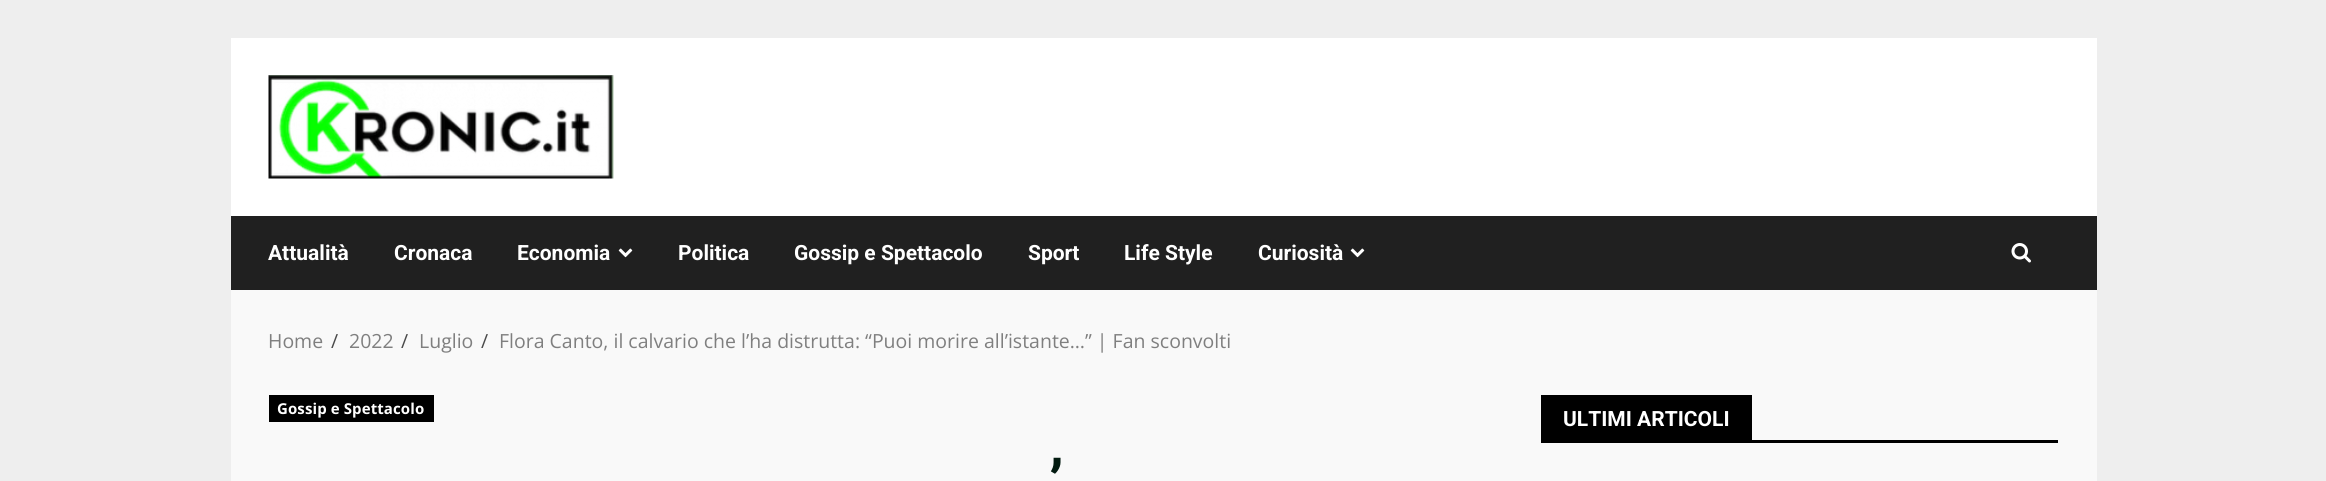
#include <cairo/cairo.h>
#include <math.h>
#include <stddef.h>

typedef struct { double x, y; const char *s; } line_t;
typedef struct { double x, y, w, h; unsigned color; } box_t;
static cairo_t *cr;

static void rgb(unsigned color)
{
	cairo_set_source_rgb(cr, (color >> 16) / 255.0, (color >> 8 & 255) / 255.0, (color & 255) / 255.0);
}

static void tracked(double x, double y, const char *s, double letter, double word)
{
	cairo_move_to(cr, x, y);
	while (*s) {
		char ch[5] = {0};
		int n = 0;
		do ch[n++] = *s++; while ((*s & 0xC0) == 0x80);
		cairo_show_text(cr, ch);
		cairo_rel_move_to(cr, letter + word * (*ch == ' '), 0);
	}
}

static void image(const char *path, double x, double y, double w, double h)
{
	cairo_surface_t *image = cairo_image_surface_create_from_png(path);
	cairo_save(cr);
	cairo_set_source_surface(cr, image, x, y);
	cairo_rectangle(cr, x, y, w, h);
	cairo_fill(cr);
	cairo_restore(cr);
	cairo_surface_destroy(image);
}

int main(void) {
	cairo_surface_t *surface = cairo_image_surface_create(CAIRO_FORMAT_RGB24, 2326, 481);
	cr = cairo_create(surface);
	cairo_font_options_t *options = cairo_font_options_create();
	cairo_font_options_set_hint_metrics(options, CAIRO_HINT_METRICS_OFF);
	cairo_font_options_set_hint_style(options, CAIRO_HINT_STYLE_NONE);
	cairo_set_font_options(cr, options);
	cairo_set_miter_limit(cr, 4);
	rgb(0xeeeeee);
	cairo_paint(cr);
	rgb(0xf9f9f9);
	cairo_rectangle(cr, 231, 290, 1866, 191);
	cairo_fill(cr);
	rgb(0xffffff);
	cairo_rectangle(cr, 231, 38, 1866, 178);
	cairo_fill(cr);
	image("img/1.png", 268, 75, 346, 104);
	rgb(0x202020);
	cairo_rectangle(cr, 231, 216, 1866, 74);
	cairo_fill(cr);
	image("img/2.png", 618, 248, 15, 10);
	image("img/2.png", 1350, 248, 15, 10);
	image("img/3.png", 2011, 243, 20, 20);
	{
		static const box_t items[] = {
			{269, 395, 165, 27, 0x000000},
			{1541, 440, 517, 3, 0x000000},
			{1541, 395, 211, 45, 0x000000},
		};
		for (size_t i = 0; i < sizeof items / sizeof *items; i++) {
			rgb(items[i].color);
			cairo_rectangle(cr, items[i].x, items[i].y, items[i].w, items[i].h);
			cairo_fill(cr);
		}
	}
	cairo_select_font_face(cr, "Roboto", CAIRO_FONT_SLANT_NORMAL, CAIRO_FONT_WEIGHT_BOLD);
	cairo_set_font_size(cr, 21);
	rgb(0xffffff);
	{
		static const line_t items[] = {
			{268, 260, "Attualità"},
			{394, 260, "Cronaca"},
			{517, 260, "Economia"},
			{678, 260, "Politica"},
			{794, 260, "Gossip e Spettacolo"},
			{1028, 260, "Sport"},
			{1124, 260, "Life Style"},
			{1258, 260, "Curiosità"},
		};
		for (size_t i = 0; i < sizeof items / sizeof *items; i++) {
			cairo_move_to(cr, items[i].x, items[i].y);
			cairo_show_text(cr, items[i].s);
		}
	}
	cairo_select_font_face(cr, "Open Sans", CAIRO_FONT_SLANT_NORMAL, CAIRO_FONT_WEIGHT_NORMAL);
	cairo_set_font_size(cr, 19.5);
	rgb(0x7f7f7f);
	cairo_move_to(cr, 268, 348);
	cairo_show_text(cr, "Home");
	rgb(0x4a4a4a);
	cairo_move_to(cr, 331, 348);
	cairo_show_text(cr, "/");
	rgb(0x7f7f7f);
	cairo_move_to(cr, 349, 348);
	cairo_show_text(cr, "2022");
	rgb(0x4a4a4a);
	cairo_move_to(cr, 401, 348);
	cairo_show_text(cr, "/");
	rgb(0x7f7f7f);
	cairo_move_to(cr, 419, 348);
	cairo_show_text(cr, "Luglio");
	rgb(0x4a4a4a);
	cairo_move_to(cr, 481, 348);
	cairo_show_text(cr, "/");
	rgb(0x7f7f7f);
	cairo_move_to(cr, 499, 348);
	cairo_show_text(cr, "Flora Canto, il calvario che l’ha distrutta: “Puoi morire all’istante…” | Fan sconvolti");
	cairo_select_font_face(cr, "Open Sans", CAIRO_FONT_SLANT_NORMAL, CAIRO_FONT_WEIGHT_BOLD);
	cairo_set_font_size(cr, 15);
	rgb(0xffffff);
	tracked(277, 414, "Gossip e Spettacolo", 0.1, 0);
	cairo_select_font_face(cr, "Roboto", CAIRO_FONT_SLANT_NORMAL, CAIRO_FONT_WEIGHT_BOLD);
	cairo_set_font_size(cr, 63);
	rgb(0x031b11);
	cairo_move_to(cr, 1049, 505);
	cairo_show_text(cr, "’");
	cairo_set_font_size(cr, 21);
	rgb(0xffffff);
	cairo_move_to(cr, 1563, 426);
	cairo_show_text(cr, "ULTIMI ARTICOLI");
	cairo_surface_write_to_png(surface, "page.png");
	cairo_font_options_destroy(options);
	cairo_destroy(cr);
	cairo_surface_destroy(surface);
	return 0;
}
